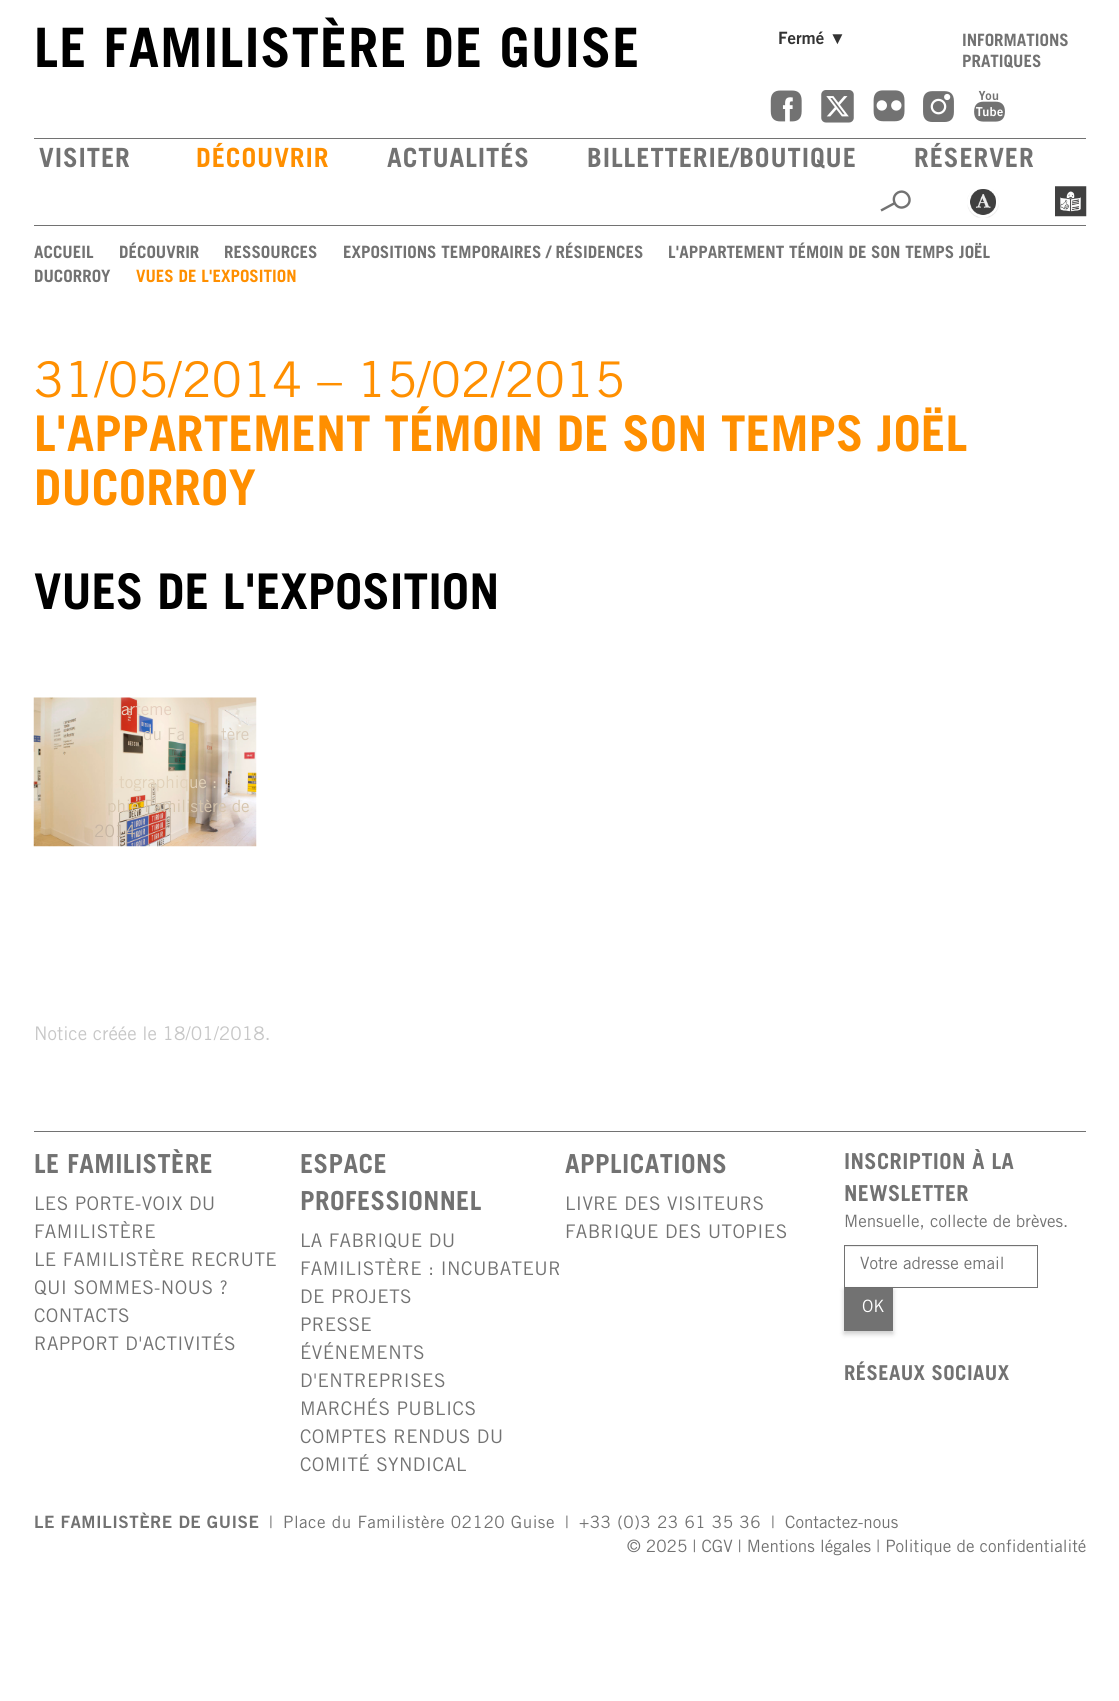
#include <cairo/cairo.h>
#include <math.h>
#include <stddef.h>

typedef struct { double x, y; const char *s; } line_t;
static cairo_t *cr;

static void rgb(unsigned color)
{
	cairo_set_source_rgb(cr, (color >> 16) / 255.0, (color >> 8 & 255) / 255.0, (color & 255) / 255.0);
}

static void tracked(double x, double y, const char *s, double letter, double word)
{
	cairo_move_to(cr, x, y);
	while (*s) {
		char ch[5] = {0};
		int n = 0;
		do ch[n++] = *s++; while ((*s & 0xC0) == 0x80);
		cairo_show_text(cr, ch);
		cairo_rel_move_to(cr, letter + word * (*ch == ' '), 0);
	}
}

static void rrect(double x, double y, double w, double h, double r)
{
	cairo_new_sub_path(cr);
	cairo_arc(cr, x + w - r, y + h - r, r, 0, M_PI / 2);
	cairo_arc(cr, x + r, y + h - r, r, M_PI / 2, M_PI);
	cairo_arc(cr, x + r, y + r, r, M_PI, 1.5 * M_PI);
	cairo_arc(cr, x + w - r, y + r, r, 1.5 * M_PI, 2 * M_PI);
	cairo_close_path(cr);
}

static void soft_shadow(double x, double y, double w, double h, double r, double blur, double alpha)
{
	cairo_push_group_with_content(cr, CAIRO_CONTENT_ALPHA);
	cairo_set_operator(cr, CAIRO_OPERATOR_SOURCE);
	for (int i = 15; i >= -15 && fmin(w, h) + blur * i / 3 > 0; i -= 2) {
		double e = blur * i / 6;
		cairo_set_source_rgba(cr, 0, 0, 0, alpha * erfc((i - 1) / 8.5) / 2);
		rrect(x - e, y - e, w + 2 * e, h + 2 * e, fmax(0, fmin(r + e + blur * .6, fmin(w, h) / 2 + e)));
		cairo_fill(cr);
	}
	cairo_pattern_t *soft = cairo_pop_group(cr);
	cairo_mask(cr, soft);
	cairo_pattern_destroy(soft);
}

static void image(const char *path, double x, double y, double w, double h)
{
	cairo_surface_t *image = cairo_image_surface_create_from_png(path);
	cairo_save(cr);
	cairo_set_source_surface(cr, image, x, y);
	cairo_rectangle(cr, x, y, w, h);
	cairo_fill(cr);
	cairo_restore(cr);
	cairo_surface_destroy(image);
}

int main(void) {
	cairo_surface_t *surface = cairo_image_surface_create(CAIRO_FORMAT_RGB24, 1119, 1701);
	cr = cairo_create(surface);
	cairo_font_options_t *options = cairo_font_options_create();
	cairo_font_options_set_hint_metrics(options, CAIRO_HINT_METRICS_OFF);
	cairo_font_options_set_hint_style(options, CAIRO_HINT_STYLE_NONE);
	cairo_set_font_options(cr, options);
	cairo_set_miter_limit(cr, 4);
	rgb(0xffffff);
	cairo_paint(cr);
	image("img/1.png", 770, 90, 32, 32);
	image("img/2.png", 821, 90, 33, 33);
	image("img/3.png", 873, 90, 32, 32);
	image("img/4.png", 923, 91, 31, 31);
	image("img/5.png", 974, 90, 31, 32);
	rgb(0x727272);
	cairo_rectangle(cr, 34, 138, 1052, 1);
	cairo_fill(cr);
	cairo_rectangle(cr, 34, 225, 1052, 1);
	cairo_fill(cr);
	cairo_new_path(cr);
	cairo_move_to(cr, 905.5, 206.5);
	cairo_curve_to(cr, 914.5, 201.5, 907, 188, 898, 192.5);
	cairo_curve_to(cr, 889, 197.5, 896, 211.5, 905.5, 206.5);
	cairo_move_to(cr, 894, 203.5);
	cairo_line_to(cr, 881, 210.5);
	cairo_set_line_width(cr, 2.4);
	cairo_stroke(cr);
	image("img/6.png", 967, 189, 32, 29);
	image("img/7.png", 1055, 186, 32, 31);
	image("img/8.png", 33, 697, 224, 150);
	cairo_rectangle(cr, 34, 1131, 1052, 1);
	cairo_fill(cr);
	rgb(0xececec);
	cairo_rectangle(cr, 845, 1246, 191, 1);
	cairo_fill(cr);
	cairo_rectangle(cr, 844.5, 1245.5, 193, 42);
	rgb(0x727272);
	cairo_set_line_width(cr, 1);
	cairo_stroke(cr);
	rgb(0x000000);
	soft_shadow(844, 1290, 49, 44, 0, 2.5, 0.2);
	rgb(0x727272);
	cairo_rectangle(cr, 844, 1288, 49, 43);
	cairo_fill(cr);
	cairo_select_font_face(cr, "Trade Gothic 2", CAIRO_FONT_SLANT_NORMAL, CAIRO_FONT_WEIGHT_BOLD);
	cairo_set_font_size(cr, 54.4);
	rgb(0x000000);
	tracked(34, 67, "LE FAMILISTÈRE DE GUISE", 1, 0);
	cairo_select_font_face(cr, "Trade Gothic", CAIRO_FONT_SLANT_NORMAL, CAIRO_FONT_WEIGHT_BOLD);
	cairo_set_font_size(cr, 17);
	rgb(0x333333);
	cairo_move_to(cr, 778, 44);
	cairo_show_text(cr, "Fermé");
	cairo_select_font_face(cr, "Liberation Serif", CAIRO_FONT_SLANT_NORMAL, CAIRO_FONT_WEIGHT_NORMAL);
	cairo_move_to(cr, 829, 44);
	cairo_show_text(cr, "▼");
	cairo_select_font_face(cr, "Trade Gothic 2", CAIRO_FONT_SLANT_NORMAL, CAIRO_FONT_WEIGHT_BOLD);
	rgb(0x727272);
	cairo_move_to(cr, 962, 46);
	cairo_show_text(cr, "INFORMATIONS");
	cairo_move_to(cr, 962, 67);
	cairo_show_text(cr, "PRATIQUES");
	cairo_set_font_size(cr, 26.5);
	tracked(39, 167, "VISITER", 0.9, 0);
	rgb(0xff8f00);
	tracked(196, 167, "DÉCOUVRIR", 0.9, 0);
	rgb(0x727272);
	{
		static const line_t items[] = {
			{387, 167, "ACTUALITÉS"},
			{587, 167, "BILLETTERIE/BOUTIQUE"},
			{914, 167, "RÉSERVER"},
		};
		for (size_t i = 0; i < sizeof items / sizeof *items; i++) {
			tracked(items[i].x, items[i].y, items[i].s, 0.9, 0);
		}
	}
	cairo_set_font_size(cr, 17);
	{
		static const line_t items[] = {
			{34, 258, "ACCUEIL"},
			{119, 258, "DÉCOUVRIR"},
			{224, 258, "RESSOURCES"},
			{343, 258, "EXPOSITIONS TEMPORAIRES / RÉSIDENCES"},
			{668, 258, "L'APPARTEMENT TÉMOIN DE SON TEMPS JOËL"},
			{34, 282, "DUCORROY"},
		};
		for (size_t i = 0; i < sizeof items / sizeof *items; i++) {
			cairo_move_to(cr, items[i].x, items[i].y);
			cairo_show_text(cr, items[i].s);
		}
	}
	rgb(0xff8f00);
	cairo_move_to(cr, 136, 282);
	cairo_show_text(cr, "VUES DE L'EXPOSITION");
	cairo_select_font_face(cr, "Trade Gothic", CAIRO_FONT_SLANT_NORMAL, CAIRO_FONT_WEIGHT_NORMAL);
	cairo_set_font_size(cr, 49.25);
	cairo_move_to(cr, 34, 397);
	cairo_show_text(cr, "31/05/2014 – 15/02/2015");
	cairo_select_font_face(cr, "Trade Gothic 2", CAIRO_FONT_SLANT_NORMAL, CAIRO_FONT_WEIGHT_BOLD);
	cairo_move_to(cr, 34, 451);
	cairo_show_text(cr, "L'APPARTEMENT TÉMOIN DE SON TEMPS JOËL");
	cairo_move_to(cr, 34, 505);
	cairo_show_text(cr, "DUCORROY");
	rgb(0x000000);
	cairo_move_to(cr, 34, 609);
	cairo_show_text(cr, "VUES DE L'EXPOSITION");
	cairo_select_font_face(cr, "Trade Gothic", CAIRO_FONT_SLANT_NORMAL, CAIRO_FONT_WEIGHT_NORMAL);
	cairo_set_font_size(cr, 17);
	rgb(0xe6cfbf);
	cairo_move_to(cr, 121, 715);
	cairo_show_text(cr, "arteme");
	rgb(0xdaccba);
	cairo_move_to(cr, 143, 740);
	cairo_show_text(cr, "du Fa");
	cairo_move_to(cr, 221, 740);
	cairo_show_text(cr, "tère");
	rgb(0xe1d1b9);
	cairo_move_to(cr, 119, 788);
	cairo_show_text(cr, "tographique :");
	rgb(0xd6c5ad);
	cairo_move_to(cr, 107, 812);
	cairo_show_text(cr, "phie Familistère de");
	rgb(0xc6b5a3);
	cairo_move_to(cr, 94, 837);
	cairo_show_text(cr, "2014.");
	cairo_set_font_size(cr, 18.75);
	rgb(0xc7c7c7);
	cairo_move_to(cr, 34, 1040);
	cairo_show_text(cr, "Notice créée le 18/01/2018.");
	cairo_select_font_face(cr, "Trade Gothic 2", CAIRO_FONT_SLANT_NORMAL, CAIRO_FONT_WEIGHT_BOLD);
	cairo_set_font_size(cr, 26.25);
	rgb(0x727272);
	tracked(34, 1173, "LE FAMILISTÈRE", 0.4, 0);
	cairo_select_font_face(cr, "Trade Gothic", CAIRO_FONT_SLANT_NORMAL, CAIRO_FONT_WEIGHT_NORMAL);
	cairo_set_font_size(cr, 18.75);
	{
		static const line_t items[] = {
			{34, 1210, "LES PORTE-VOIX DU"},
			{34, 1238, "FAMILISTÈRE"},
			{34, 1266, "LE FAMILISTÈRE RECRUTE"},
			{34, 1294, "QUI SOMMES-NOUS ?"},
			{34, 1322, "CONTACTS"},
			{34, 1350, "RAPPORT D'ACTIVITÉS"},
		};
		for (size_t i = 0; i < sizeof items / sizeof *items; i++) {
			tracked(items[i].x, items[i].y, items[i].s, 0.4, 0);
		}
	}
	cairo_select_font_face(cr, "Trade Gothic 2", CAIRO_FONT_SLANT_NORMAL, CAIRO_FONT_WEIGHT_BOLD);
	cairo_set_font_size(cr, 26.25);
	tracked(300, 1173, "ESPACE", 0.4, 0);
	tracked(300, 1210, "PROFESSIONNEL", 0.4, 0);
	cairo_select_font_face(cr, "Trade Gothic", CAIRO_FONT_SLANT_NORMAL, CAIRO_FONT_WEIGHT_NORMAL);
	cairo_set_font_size(cr, 18.75);
	{
		static const line_t items[] = {
			{300, 1247, "LA FABRIQUE DU"},
			{300, 1275, "FAMILISTÈRE : INCUBATEUR"},
			{300, 1303, "DE PROJETS"},
			{300, 1331, "PRESSE"},
			{300, 1359, "ÉVÉNEMENTS"},
			{300, 1387, "D'ENTREPRISES"},
			{300, 1415, "MARCHÉS PUBLICS"},
			{300, 1443, "COMPTES RENDUS DU"},
			{300, 1471, "COMITÉ SYNDICAL"},
		};
		for (size_t i = 0; i < sizeof items / sizeof *items; i++) {
			tracked(items[i].x, items[i].y, items[i].s, 0.4, 0);
		}
	}
	cairo_select_font_face(cr, "Trade Gothic 2", CAIRO_FONT_SLANT_NORMAL, CAIRO_FONT_WEIGHT_BOLD);
	cairo_set_font_size(cr, 26.25);
	tracked(565, 1173, "APPLICATIONS", 0.4, 0);
	cairo_select_font_face(cr, "Trade Gothic", CAIRO_FONT_SLANT_NORMAL, CAIRO_FONT_WEIGHT_NORMAL);
	cairo_set_font_size(cr, 18.75);
	tracked(565, 1210, "LIVRE DES VISITEURS", 0.4, 0);
	tracked(565, 1238, "FABRIQUE DES UTOPIES", 0.4, 0);
	cairo_select_font_face(cr, "Trade Gothic 2", CAIRO_FONT_SLANT_NORMAL, CAIRO_FONT_WEIGHT_BOLD);
	cairo_set_font_size(cr, 22);
	tracked(844, 1169, "INSCRIPTION À LA", 0.4, 0);
	tracked(844, 1201, "NEWSLETTER", 0.4, 0);
	cairo_select_font_face(cr, "Trade Gothic", CAIRO_FONT_SLANT_NORMAL, CAIRO_FONT_WEIGHT_NORMAL);
	cairo_set_font_size(cr, 17);
	cairo_move_to(cr, 844, 1227);
	cairo_show_text(cr, "Mensuelle, collecte de brèves.");
	cairo_move_to(cr, 860, 1269);
	cairo_show_text(cr, "Votre adresse email");
	rgb(0xffffff);
	cairo_move_to(cr, 862, 1312);
	cairo_show_text(cr, "OK");
	cairo_select_font_face(cr, "Trade Gothic 2", CAIRO_FONT_SLANT_NORMAL, CAIRO_FONT_WEIGHT_BOLD);
	cairo_set_font_size(cr, 20.5);
	rgb(0x727272);
	tracked(844, 1380, "RÉSEAUX SOCIAUX", 0.4, 0);
	cairo_select_font_face(cr, "Trade Gothic", CAIRO_FONT_SLANT_NORMAL, CAIRO_FONT_WEIGHT_BOLD);
	cairo_set_font_size(cr, 17);
	tracked(34, 1528, "LE FAMILISTÈRE DE GUISE", 0.5, 0);
	cairo_select_font_face(cr, "Trade Gothic", CAIRO_FONT_SLANT_NORMAL, CAIRO_FONT_WEIGHT_NORMAL);
	{
		static const line_t items[] = {
			{269, 1528, "|"},
			{283, 1528, "Place du Familistère 02120 Guise"},
			{565, 1528, "|"},
			{579, 1528, "+33 (0)3 23 61 35 36"},
			{771, 1528, "|"},
		};
		for (size_t i = 0; i < sizeof items / sizeof *items; i++) {
			tracked(items[i].x, items[i].y, items[i].s, 0.5, 0);
		}
	}
	cairo_move_to(cr, 785, 1528);
	cairo_show_text(cr, "Contactez-nous");
	cairo_move_to(cr, 627, 1552);
	cairo_show_text(cr, "© 2025 | CGV | Mentions légales | Politique de confidentialité");
	cairo_surface_write_to_png(surface, "page.png");
	cairo_font_options_destroy(options);
	cairo_destroy(cr);
	cairo_surface_destroy(surface);
	return 0;
}
